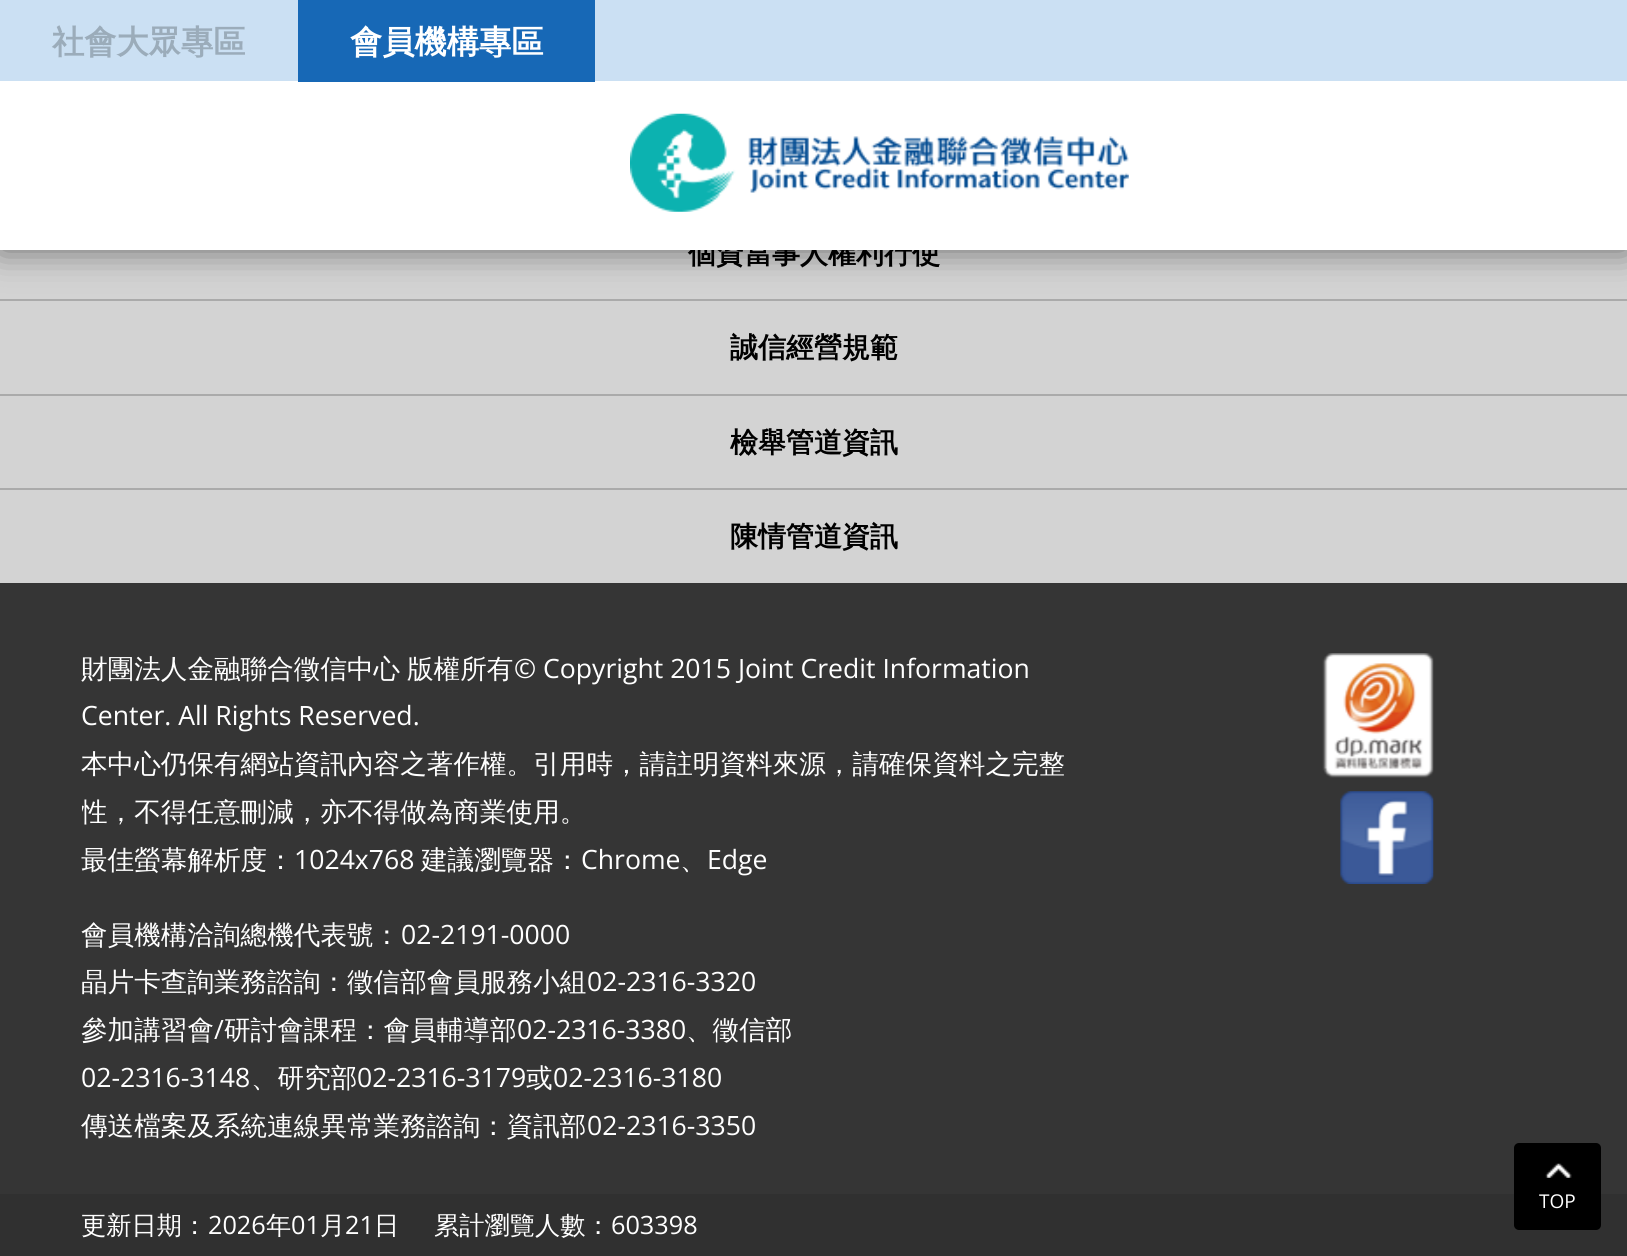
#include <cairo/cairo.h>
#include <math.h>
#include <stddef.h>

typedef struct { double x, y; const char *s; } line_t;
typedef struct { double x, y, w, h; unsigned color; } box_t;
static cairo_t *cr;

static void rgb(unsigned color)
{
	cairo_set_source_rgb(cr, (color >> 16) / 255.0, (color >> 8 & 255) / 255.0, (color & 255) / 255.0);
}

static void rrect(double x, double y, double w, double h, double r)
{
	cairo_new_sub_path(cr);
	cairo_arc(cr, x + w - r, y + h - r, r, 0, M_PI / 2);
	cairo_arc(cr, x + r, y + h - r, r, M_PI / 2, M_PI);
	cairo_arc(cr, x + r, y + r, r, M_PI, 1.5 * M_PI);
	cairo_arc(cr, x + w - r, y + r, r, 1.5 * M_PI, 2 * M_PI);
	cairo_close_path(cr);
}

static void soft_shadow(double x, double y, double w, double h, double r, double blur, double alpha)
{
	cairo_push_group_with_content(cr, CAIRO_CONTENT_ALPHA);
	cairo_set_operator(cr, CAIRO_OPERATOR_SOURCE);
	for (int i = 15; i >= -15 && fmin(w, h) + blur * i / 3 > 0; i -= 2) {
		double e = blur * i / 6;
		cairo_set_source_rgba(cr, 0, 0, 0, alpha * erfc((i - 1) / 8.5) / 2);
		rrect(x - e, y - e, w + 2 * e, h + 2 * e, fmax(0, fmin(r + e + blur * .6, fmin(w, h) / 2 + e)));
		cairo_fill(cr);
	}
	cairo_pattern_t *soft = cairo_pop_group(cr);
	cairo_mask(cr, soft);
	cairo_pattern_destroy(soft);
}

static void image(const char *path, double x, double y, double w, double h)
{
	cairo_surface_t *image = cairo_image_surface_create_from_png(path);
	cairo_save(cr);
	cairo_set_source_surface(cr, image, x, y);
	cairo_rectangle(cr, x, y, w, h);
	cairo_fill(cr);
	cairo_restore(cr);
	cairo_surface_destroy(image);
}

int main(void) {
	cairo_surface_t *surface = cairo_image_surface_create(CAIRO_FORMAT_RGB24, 1627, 1256);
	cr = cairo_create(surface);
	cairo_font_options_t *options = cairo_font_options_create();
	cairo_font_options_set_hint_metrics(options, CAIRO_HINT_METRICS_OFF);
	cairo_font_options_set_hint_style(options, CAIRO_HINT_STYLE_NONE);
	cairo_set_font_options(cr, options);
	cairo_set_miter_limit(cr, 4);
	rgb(0xd3d3d3);
	cairo_paint(cr);
	rgb(0xaaaaaa);
	cairo_rectangle(cr, 0, 299, 1627, 2);
	cairo_fill(cr);
	rgb(0x000000);
	soft_shadow(0, 0, 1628, 250, 0, 17.5, 0.5);
	{
		static const box_t items[] = {
			{0, 0, 1627, 81, 0xcbe0f3},
			{0, 394, 1627, 2, 0xaaaaaa},
			{0, 488, 1627, 2, 0xaaaaaa},
			{0, 583, 1627, 611, 0x353535},
		};
		for (size_t i = 0; i < sizeof items / sizeof *items; i++) {
			rgb(items[i].color);
			cairo_rectangle(cr, items[i].x, items[i].y, items[i].w, items[i].h);
			cairo_fill(cr);
		}
	}
	image("img/2.png", 1322, 653, 112, 125);
	image("img/3.png", 1340, 791, 94, 93);
	rgb(0x303030);
	cairo_rectangle(cr, 0, 1194, 1627, 62);
	cairo_fill(cr);
	rgb(0x000000);
	rrect(1514, 1143, 87, 87, 5);
	cairo_fill(cr);
	image("img/4.png", 1545, 1163, 27, 15);
	cairo_select_font_face(cr, "WenQuanYi Zen Hei", CAIRO_FONT_SLANT_NORMAL, CAIRO_FONT_WEIGHT_BOLD);
	cairo_set_font_size(cr, 32.25);
	rgb(0x9bacba);
	cairo_move_to(cr, 52, 53);
	cairo_show_text(cr, "社會大眾專區");
	cairo_set_font_size(cr, 28);
	rgb(0x000000);
	cairo_move_to(cr, 688, 263);
	cairo_show_text(cr, "個資當事人權利行使");
	rgb(0xffffff);
	cairo_rectangle(cr, 0, 81, 1627, 169);
	cairo_fill(cr);
	image("img/1.png", 630, 113, 499, 99);
	rgb(0x1768b6);
	cairo_rectangle(cr, 298, 0, 297, 82);
	cairo_fill(cr);
	cairo_set_font_size(cr, 32.25);
	rgb(0xffffff);
	cairo_move_to(cr, 350, 53);
	cairo_show_text(cr, "會員機構專區");
	cairo_set_font_size(cr, 28);
	rgb(0x000000);
	{
		static const line_t items[] = {
			{730, 357, "誠信經營規範"},
			{730, 452, "檢舉管道資訊"},
			{730, 546, "陳情管道資訊"},
		};
		for (size_t i = 0; i < sizeof items / sizeof *items; i++) {
			cairo_move_to(cr, items[i].x, items[i].y);
			cairo_show_text(cr, items[i].s);
		}
	}
	cairo_select_font_face(cr, "WenQuanYi Zen Hei Medium", CAIRO_FONT_SLANT_NORMAL, CAIRO_FONT_WEIGHT_NORMAL);
	cairo_set_font_size(cr, 26.6);
	rgb(0xffffff);
	cairo_move_to(cr, 81, 678);
	cairo_show_text(cr, "財團法人金融聯合徵信中心");
	cairo_move_to(cr, 407, 678);
	cairo_show_text(cr, "版權所有");
	cairo_select_font_face(cr, "Open Sans", CAIRO_FONT_SLANT_NORMAL, CAIRO_FONT_WEIGHT_NORMAL);
	cairo_move_to(cr, 514, 678);
	cairo_show_text(cr, "© Copyright 2015 Joint Credit Information");
	cairo_move_to(cr, 81, 725);
	cairo_show_text(cr, "Center. All Rights Reserved.");
	cairo_select_font_face(cr, "WenQuanYi Zen Hei Medium", CAIRO_FONT_SLANT_NORMAL, CAIRO_FONT_WEIGHT_NORMAL);
	cairo_move_to(cr, 81, 773);
	cairo_show_text(cr, "本中心仍保有網站資訊內容之著作權。引用時，請註明資料來源，請確保資料之完整");
	cairo_save(cr);
	cairo_rectangle(cr, 82, 618, 1465, 576);
	cairo_clip(cr);
	cairo_move_to(cr, 81, 821);
	cairo_show_text(cr, "性，不得任意刪減，亦不得做為商業使用。");
	cairo_restore(cr);
	cairo_move_to(cr, 81, 869);
	cairo_show_text(cr, "最佳螢幕解析度：");
	cairo_select_font_face(cr, "Open Sans", CAIRO_FONT_SLANT_NORMAL, CAIRO_FONT_WEIGHT_NORMAL);
	cairo_move_to(cr, 294, 869);
	cairo_show_text(cr, "1024x768");
	cairo_select_font_face(cr, "WenQuanYi Zen Hei Medium", CAIRO_FONT_SLANT_NORMAL, CAIRO_FONT_WEIGHT_NORMAL);
	cairo_move_to(cr, 421, 869);
	cairo_show_text(cr, "建議瀏覽器：");
	cairo_select_font_face(cr, "Open Sans", CAIRO_FONT_SLANT_NORMAL, CAIRO_FONT_WEIGHT_NORMAL);
	cairo_move_to(cr, 581, 869);
	cairo_show_text(cr, "Chrome");
	cairo_select_font_face(cr, "WenQuanYi Zen Hei Medium", CAIRO_FONT_SLANT_NORMAL, CAIRO_FONT_WEIGHT_NORMAL);
	cairo_move_to(cr, 680, 869);
	cairo_show_text(cr, "、");
	cairo_select_font_face(cr, "Open Sans", CAIRO_FONT_SLANT_NORMAL, CAIRO_FONT_WEIGHT_NORMAL);
	cairo_move_to(cr, 707, 869);
	cairo_show_text(cr, "Edge");
	cairo_select_font_face(cr, "WenQuanYi Zen Hei Medium", CAIRO_FONT_SLANT_NORMAL, CAIRO_FONT_WEIGHT_NORMAL);
	cairo_move_to(cr, 81, 944);
	cairo_show_text(cr, "會員機構洽詢總機代表號：");
	cairo_select_font_face(cr, "Open Sans", CAIRO_FONT_SLANT_NORMAL, CAIRO_FONT_WEIGHT_NORMAL);
	cairo_move_to(cr, 401, 944);
	cairo_show_text(cr, "02-2191-0000");
	cairo_select_font_face(cr, "WenQuanYi Zen Hei Medium", CAIRO_FONT_SLANT_NORMAL, CAIRO_FONT_WEIGHT_NORMAL);
	cairo_move_to(cr, 81, 991);
	cairo_show_text(cr, "晶片卡查詢業務諮詢：徵信部會員服務小組");
	cairo_select_font_face(cr, "Open Sans", CAIRO_FONT_SLANT_NORMAL, CAIRO_FONT_WEIGHT_NORMAL);
	cairo_move_to(cr, 587, 991);
	cairo_show_text(cr, "02-2316-3320");
	cairo_select_font_face(cr, "WenQuanYi Zen Hei Medium", CAIRO_FONT_SLANT_NORMAL, CAIRO_FONT_WEIGHT_NORMAL);
	cairo_move_to(cr, 81, 1039);
	cairo_show_text(cr, "參加講習會");
	cairo_select_font_face(cr, "Open Sans", CAIRO_FONT_SLANT_NORMAL, CAIRO_FONT_WEIGHT_NORMAL);
	cairo_move_to(cr, 214, 1039);
	cairo_show_text(cr, "/");
	cairo_select_font_face(cr, "WenQuanYi Zen Hei Medium", CAIRO_FONT_SLANT_NORMAL, CAIRO_FONT_WEIGHT_NORMAL);
	cairo_move_to(cr, 224, 1039);
	cairo_show_text(cr, "研討會課程：會員輔導部");
	cairo_select_font_face(cr, "Open Sans", CAIRO_FONT_SLANT_NORMAL, CAIRO_FONT_WEIGHT_NORMAL);
	cairo_move_to(cr, 517, 1039);
	cairo_show_text(cr, "02-2316-3380");
	cairo_select_font_face(cr, "WenQuanYi Zen Hei Medium", CAIRO_FONT_SLANT_NORMAL, CAIRO_FONT_WEIGHT_NORMAL);
	cairo_move_to(cr, 686, 1039);
	cairo_show_text(cr, "、徵信部");
	cairo_select_font_face(cr, "Open Sans", CAIRO_FONT_SLANT_NORMAL, CAIRO_FONT_WEIGHT_NORMAL);
	cairo_move_to(cr, 81, 1087);
	cairo_show_text(cr, "02-2316-3148");
	cairo_select_font_face(cr, "WenQuanYi Zen Hei Medium", CAIRO_FONT_SLANT_NORMAL, CAIRO_FONT_WEIGHT_NORMAL);
	cairo_move_to(cr, 251, 1087);
	cairo_show_text(cr, "、研究部");
	cairo_select_font_face(cr, "Open Sans", CAIRO_FONT_SLANT_NORMAL, CAIRO_FONT_WEIGHT_NORMAL);
	cairo_move_to(cr, 357, 1087);
	cairo_show_text(cr, "02-2316-3179");
	cairo_select_font_face(cr, "WenQuanYi Zen Hei Medium", CAIRO_FONT_SLANT_NORMAL, CAIRO_FONT_WEIGHT_NORMAL);
	cairo_move_to(cr, 526, 1087);
	cairo_show_text(cr, "或");
	cairo_select_font_face(cr, "Open Sans", CAIRO_FONT_SLANT_NORMAL, CAIRO_FONT_WEIGHT_NORMAL);
	cairo_move_to(cr, 553, 1087);
	cairo_show_text(cr, "02-2316-3180");
	cairo_select_font_face(cr, "WenQuanYi Zen Hei Medium", CAIRO_FONT_SLANT_NORMAL, CAIRO_FONT_WEIGHT_NORMAL);
	cairo_move_to(cr, 81, 1135);
	cairo_show_text(cr, "傳送檔案及系統連線異常業務諮詢：資訊部");
	cairo_select_font_face(cr, "Open Sans", CAIRO_FONT_SLANT_NORMAL, CAIRO_FONT_WEIGHT_NORMAL);
	cairo_move_to(cr, 587, 1135);
	cairo_show_text(cr, "02-2316-3350");
	cairo_select_font_face(cr, "WenQuanYi Zen Hei Medium", CAIRO_FONT_SLANT_NORMAL, CAIRO_FONT_WEIGHT_NORMAL);
	cairo_set_font_size(cr, 25.25);
	cairo_move_to(cr, 81, 1234);
	cairo_show_text(cr, "更新日期：");
	cairo_select_font_face(cr, "Open Sans", CAIRO_FONT_SLANT_NORMAL, CAIRO_FONT_WEIGHT_NORMAL);
	cairo_move_to(cr, 208, 1234);
	cairo_show_text(cr, "2026");
	cairo_select_font_face(cr, "WenQuanYi Zen Hei Medium", CAIRO_FONT_SLANT_NORMAL, CAIRO_FONT_WEIGHT_NORMAL);
	cairo_move_to(cr, 266, 1234);
	cairo_show_text(cr, "年");
	cairo_select_font_face(cr, "Open Sans", CAIRO_FONT_SLANT_NORMAL, CAIRO_FONT_WEIGHT_NORMAL);
	cairo_move_to(cr, 291, 1234);
	cairo_show_text(cr, "01");
	cairo_select_font_face(cr, "WenQuanYi Zen Hei Medium", CAIRO_FONT_SLANT_NORMAL, CAIRO_FONT_WEIGHT_NORMAL);
	cairo_move_to(cr, 320, 1234);
	cairo_show_text(cr, "月");
	cairo_select_font_face(cr, "Open Sans", CAIRO_FONT_SLANT_NORMAL, CAIRO_FONT_WEIGHT_NORMAL);
	cairo_move_to(cr, 345, 1234);
	cairo_show_text(cr, "21");
	cairo_select_font_face(cr, "WenQuanYi Zen Hei Medium", CAIRO_FONT_SLANT_NORMAL, CAIRO_FONT_WEIGHT_NORMAL);
	cairo_move_to(cr, 374, 1234);
	cairo_show_text(cr, "日");
	cairo_move_to(cr, 434, 1234);
	cairo_show_text(cr, "累計瀏覽人數：");
	cairo_select_font_face(cr, "Open Sans", CAIRO_FONT_SLANT_NORMAL, CAIRO_FONT_WEIGHT_NORMAL);
	cairo_move_to(cr, 611, 1234);
	cairo_show_text(cr, "603398");
	cairo_set_font_size(cr, 19);
	cairo_move_to(cr, 1539, 1208);
	cairo_show_text(cr, "TOP");
	cairo_surface_write_to_png(surface, "page.png");
	cairo_font_options_destroy(options);
	cairo_destroy(cr);
	cairo_surface_destroy(surface);
	return 0;
}
